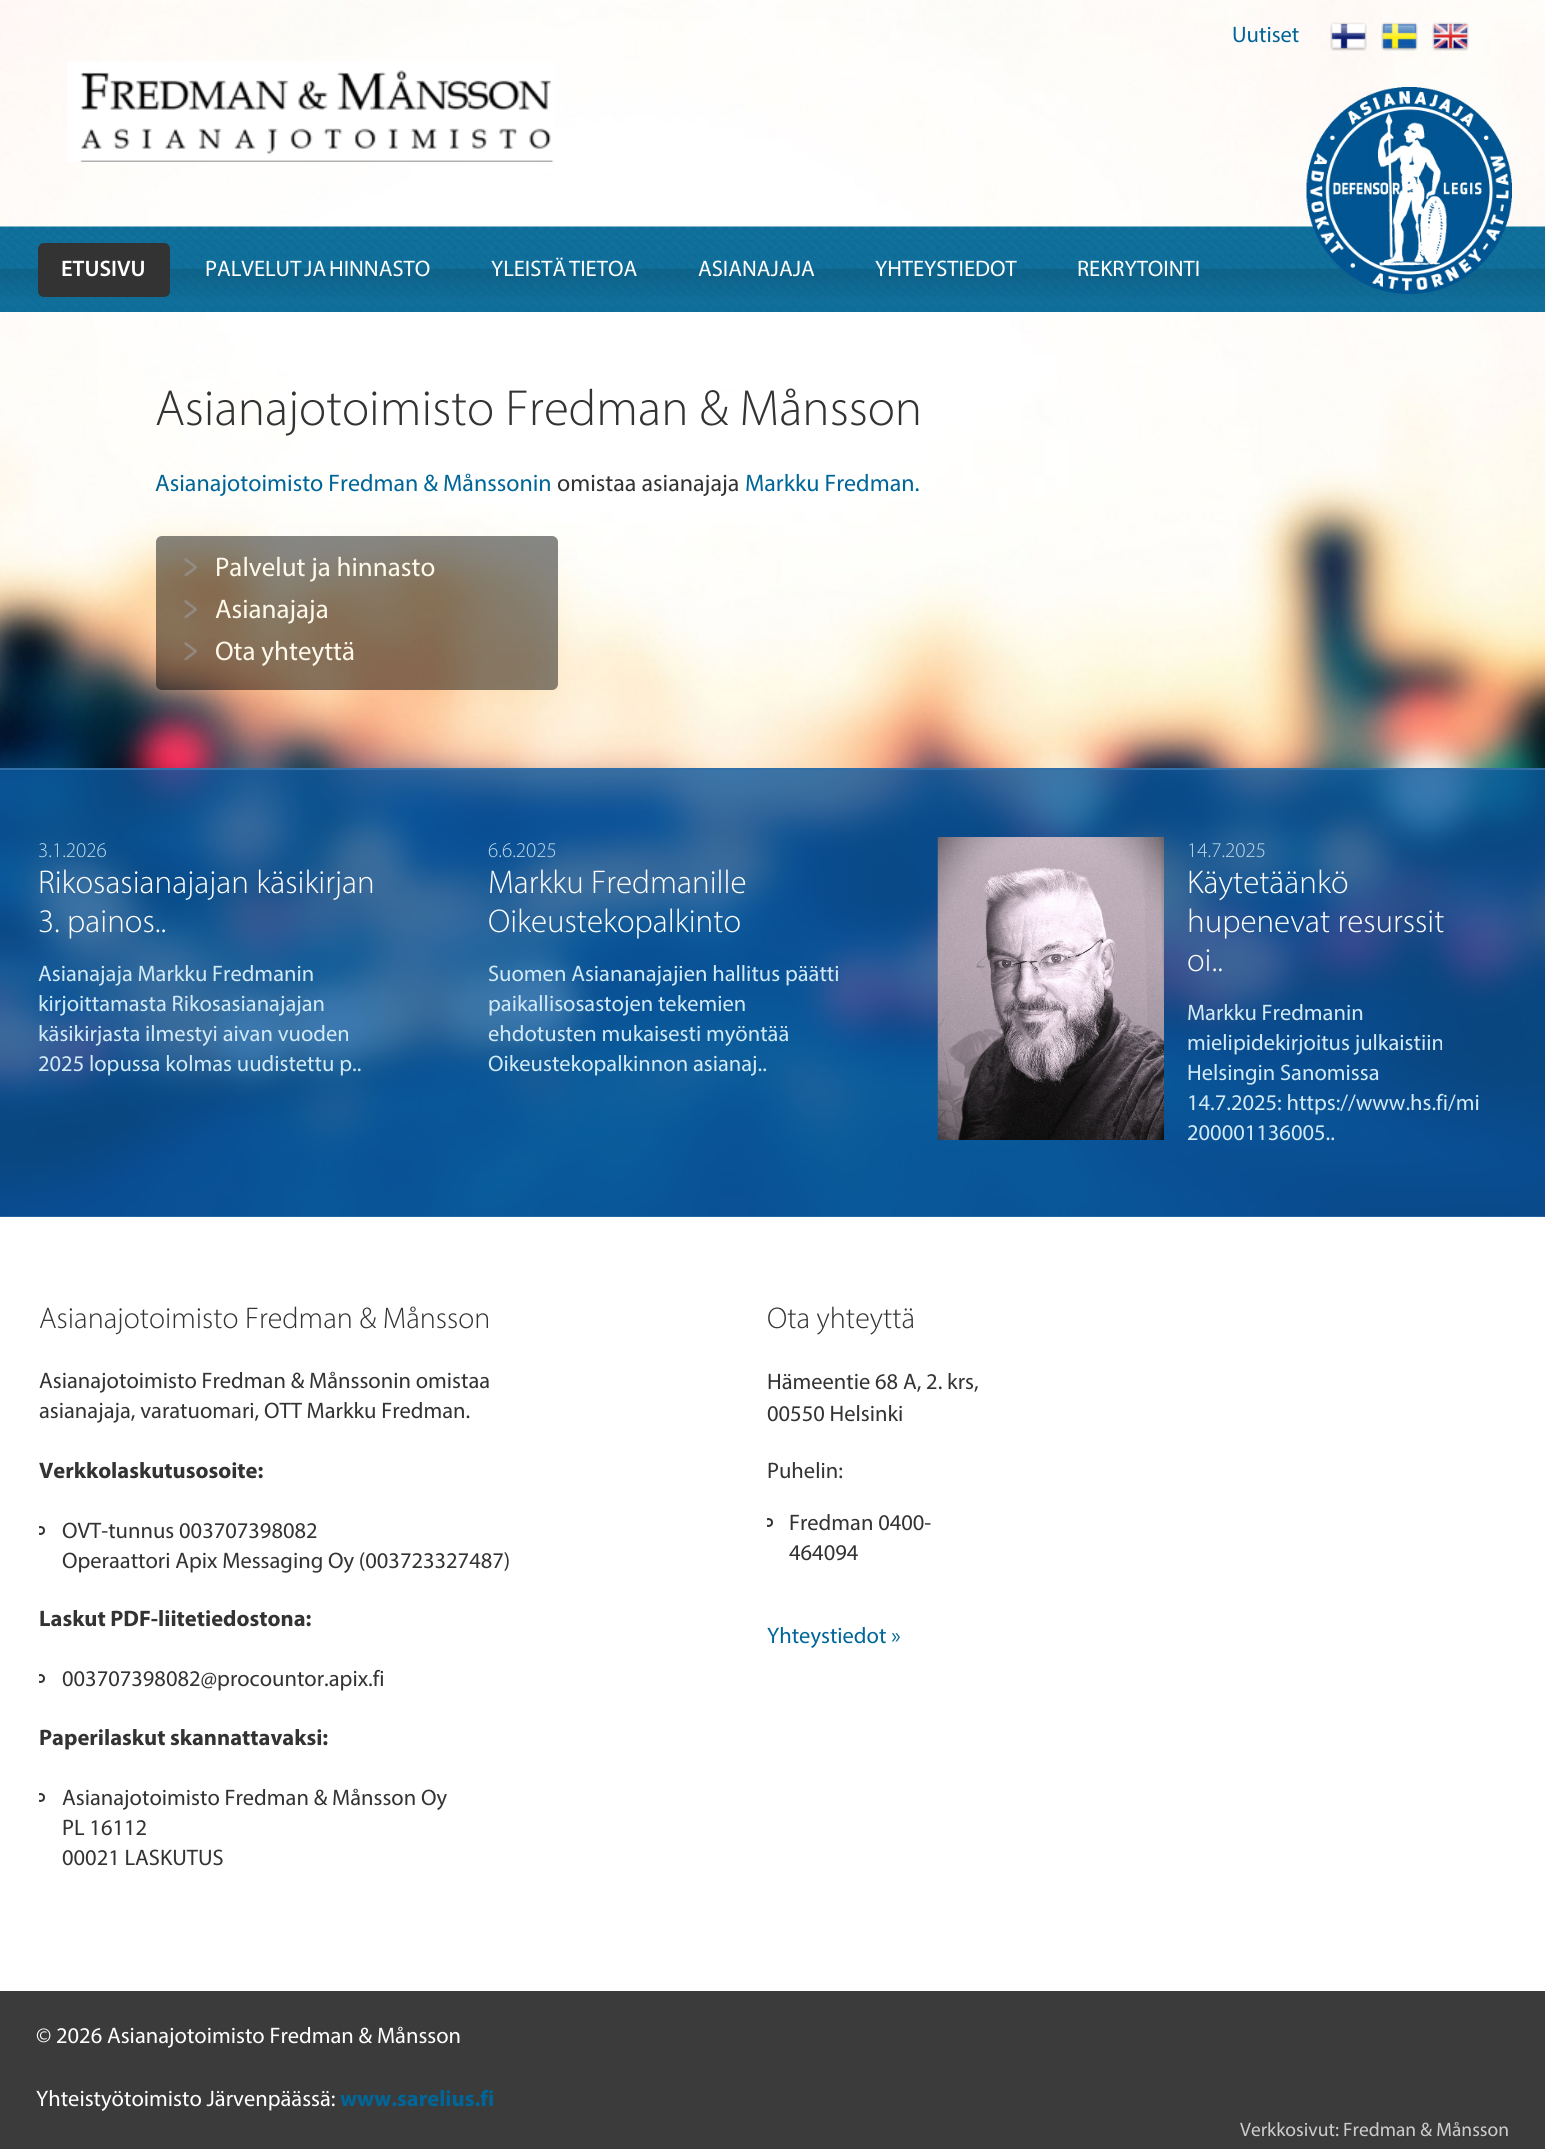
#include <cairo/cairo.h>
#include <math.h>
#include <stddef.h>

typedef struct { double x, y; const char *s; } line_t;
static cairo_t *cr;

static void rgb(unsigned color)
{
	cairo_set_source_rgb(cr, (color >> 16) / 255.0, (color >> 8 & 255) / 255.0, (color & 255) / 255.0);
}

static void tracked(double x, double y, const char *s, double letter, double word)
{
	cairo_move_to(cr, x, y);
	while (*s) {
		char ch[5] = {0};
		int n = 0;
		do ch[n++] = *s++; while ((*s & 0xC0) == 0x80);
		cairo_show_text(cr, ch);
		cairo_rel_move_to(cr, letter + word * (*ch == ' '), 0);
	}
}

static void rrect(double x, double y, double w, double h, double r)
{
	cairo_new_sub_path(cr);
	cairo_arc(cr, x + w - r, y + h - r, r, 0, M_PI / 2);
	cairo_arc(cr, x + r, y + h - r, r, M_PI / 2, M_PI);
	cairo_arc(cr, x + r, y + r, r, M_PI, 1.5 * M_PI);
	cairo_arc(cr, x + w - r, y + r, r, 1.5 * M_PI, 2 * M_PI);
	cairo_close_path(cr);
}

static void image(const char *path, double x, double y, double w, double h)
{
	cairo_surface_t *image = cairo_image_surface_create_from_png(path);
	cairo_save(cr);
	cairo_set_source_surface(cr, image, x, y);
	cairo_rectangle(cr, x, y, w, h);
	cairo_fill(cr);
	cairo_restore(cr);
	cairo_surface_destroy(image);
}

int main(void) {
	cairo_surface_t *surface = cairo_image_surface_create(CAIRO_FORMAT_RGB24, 1545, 2149);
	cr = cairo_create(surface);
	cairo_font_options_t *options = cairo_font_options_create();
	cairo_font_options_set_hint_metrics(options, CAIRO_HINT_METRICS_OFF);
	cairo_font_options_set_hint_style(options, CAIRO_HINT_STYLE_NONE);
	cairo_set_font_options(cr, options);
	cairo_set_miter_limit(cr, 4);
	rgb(0x3a3b3a);
	cairo_paint(cr);
	rgb(0xffffff);
	cairo_rectangle(cr, 0, 1216, 1545, 775);
	cairo_fill(cr);
	image("img/1.png", 0, 0, 1545, 1217);
	image("img/2.png", 1330, 22, 37, 29);
	image("img/3.png", 1381, 22, 37, 29);
	image("img/4.png", 1432, 22, 37, 29);
	image("img/5.png", 67, 61, 487, 101);
	image("img/6.png", 0, 226, 1545, 86);
	rgb(0x333333);
	rrect(38, 243, 132, 54, 6);
	cairo_fill(cr);
	image("img/7.png", 1306, 87, 206, 207);
	cairo_set_source_rgba(cr, 0, 0, 0, 0.47);
	rrect(156, 536, 402, 154, 6);
	cairo_fill(cr);
	image("img/8.png", 184, 558, 13, 18);
	image("img/9.png", 184, 600, 13, 18);
	image("img/10.png", 184, 642, 13, 18);
	cairo_set_source_rgba(cr, 0.047, 0.345, 0.62, 0.8);
	cairo_rectangle(cr, 0, 770, 1545, 447);
	cairo_fill(cr);
	rgb(0x326fa7);
	cairo_rectangle(cr, 0, 768, 1545, 2);
	cairo_fill(cr);
	image("img/11.png", 937, 837, 227, 303);
	cairo_save(cr);
	cairo_rectangle(cr, 39, 1217, 1467, 774);
	cairo_clip(cr);
	cairo_arc(cr, 40.5, 1530.5, 3.5, 0, 2 * M_PI);
	rgb(0x333333);
	cairo_stroke(cr);
	cairo_arc(cr, 40.5, 1678.5, 3.5, 0, 2 * M_PI);
	cairo_stroke(cr);
	cairo_arc(cr, 40.5, 1797.5, 3.5, 0, 2 * M_PI);
	cairo_stroke(cr);
	cairo_restore(cr);
	cairo_save(cr);
	cairo_rectangle(cr, 767, 1301, 223, 372);
	cairo_clip(cr);
	cairo_arc(cr, 768.5, 1522.5, 3.5, 0, 2 * M_PI);
	rgb(0x333333);
	cairo_stroke(cr);
	cairo_restore(cr);
	cairo_select_font_face(cr, "Myriad", CAIRO_FONT_SLANT_NORMAL, CAIRO_FONT_WEIGHT_NORMAL);
	cairo_set_font_size(cr, 22.5);
	rgb(0x006699);
	cairo_move_to(cr, 1232, 42);
	cairo_show_text(cr, "Uutiset");
	cairo_select_font_face(cr, "Myriad SemiBold", CAIRO_FONT_SLANT_NORMAL, CAIRO_FONT_WEIGHT_NORMAL);
	rgb(0xffffff);
	cairo_move_to(cr, 61, 276);
	cairo_show_text(cr, "ETUSIVU");
	cairo_select_font_face(cr, "Myriad", CAIRO_FONT_SLANT_NORMAL, CAIRO_FONT_WEIGHT_NORMAL);
	tracked(205, 276, "PALVELUT JA HINNASTO", 0, -2);
	tracked(491, 276, "YLEISTÄ TIETOA", 0, -2);
	{
		static const line_t items[] = {
			{698, 276, "ASIANAJAJA"},
			{875, 276, "YHTEYSTIEDOT"},
			{1077, 276, "REKRYTOINTI"},
		};
		for (size_t i = 0; i < sizeof items / sizeof *items; i++) {
			cairo_move_to(cr, items[i].x, items[i].y);
			cairo_show_text(cr, items[i].s);
		}
	}
	cairo_select_font_face(cr, "Myriad Light", CAIRO_FONT_SLANT_NORMAL, CAIRO_FONT_WEIGHT_NORMAL);
	cairo_set_font_size(cr, 51);
	rgb(0x333333);
	cairo_move_to(cr, 155, 425);
	cairo_show_text(cr, "Asianajotoimisto Fredman & Månsson");
	cairo_select_font_face(cr, "Myriad", CAIRO_FONT_SLANT_NORMAL, CAIRO_FONT_WEIGHT_NORMAL);
	cairo_set_font_size(cr, 24);
	rgb(0x006699);
	cairo_move_to(cr, 155, 491);
	cairo_show_text(cr, "Asianajotoimisto Fredman & Månssonin");
	rgb(0x333333);
	cairo_move_to(cr, 557, 491);
	cairo_show_text(cr, "omistaa asianajaja");
	rgb(0x006699);
	cairo_move_to(cr, 745, 491);
	cairo_show_text(cr, "Markku Fredman.");
	cairo_set_font_size(cr, 27);
	rgb(0xfff9eb);
	{
		static const line_t items[] = {
			{215, 576, "Palvelut ja hinnasto"},
			{215, 618, "Asianajaja"},
			{215, 660, "Ota yhteyttä"},
		};
		for (size_t i = 0; i < sizeof items / sizeof *items; i++) {
			cairo_move_to(cr, items[i].x, items[i].y);
			cairo_show_text(cr, items[i].s);
		}
	}
	cairo_select_font_face(cr, "Myriad Light", CAIRO_FONT_SLANT_NORMAL, CAIRO_FONT_WEIGHT_NORMAL);
	cairo_set_font_size(cr, 21);
	rgb(0xbad9e9);
	cairo_move_to(cr, 38, 857);
	cairo_show_text(cr, "3.1.2026");
	cairo_set_font_size(cr, 33);
	rgb(0xffffff);
	cairo_move_to(cr, 38, 893);
	cairo_show_text(cr, "Rikosasianajajan käsikirjan");
	cairo_move_to(cr, 38, 932);
	cairo_show_text(cr, "3. painos..");
	cairo_select_font_face(cr, "Myriad", CAIRO_FONT_SLANT_NORMAL, CAIRO_FONT_WEIGHT_NORMAL);
	cairo_set_font_size(cr, 22.5);
	rgb(0xd0eaf7);
	{
		static const line_t items[] = {
			{38, 981, "Asianajaja Markku Fredmanin"},
			{38, 1011, "kirjoittamasta Rikosasianajajan"},
			{38, 1041, "käsikirjasta ilmestyi aivan vuoden"},
			{38, 1071, "2025 lopussa kolmas uudistettu p.."},
		};
		for (size_t i = 0; i < sizeof items / sizeof *items; i++) {
			cairo_move_to(cr, items[i].x, items[i].y);
			cairo_show_text(cr, items[i].s);
		}
	}
	cairo_select_font_face(cr, "Myriad Light", CAIRO_FONT_SLANT_NORMAL, CAIRO_FONT_WEIGHT_NORMAL);
	cairo_set_font_size(cr, 21);
	rgb(0xbad9e9);
	cairo_move_to(cr, 488, 857);
	cairo_show_text(cr, "6.6.2025");
	cairo_set_font_size(cr, 33);
	rgb(0xffffff);
	cairo_move_to(cr, 488, 893);
	cairo_show_text(cr, "Markku Fredmanille");
	cairo_move_to(cr, 488, 932);
	cairo_show_text(cr, "Oikeustekopalkinto");
	cairo_select_font_face(cr, "Myriad", CAIRO_FONT_SLANT_NORMAL, CAIRO_FONT_WEIGHT_NORMAL);
	cairo_set_font_size(cr, 22.5);
	rgb(0xd0eaf7);
	{
		static const line_t items[] = {
			{488, 981, "Suomen Asiananajajien hallitus päätti"},
			{488, 1011, "paikallisosastojen tekemien"},
			{488, 1041, "ehdotusten mukaisesti myöntää"},
			{488, 1071, "Oikeustekopalkinnon asianaj.."},
		};
		for (size_t i = 0; i < sizeof items / sizeof *items; i++) {
			cairo_move_to(cr, items[i].x, items[i].y);
			cairo_show_text(cr, items[i].s);
		}
	}
	cairo_select_font_face(cr, "Myriad Light", CAIRO_FONT_SLANT_NORMAL, CAIRO_FONT_WEIGHT_NORMAL);
	cairo_set_font_size(cr, 21);
	rgb(0xbad9e9);
	cairo_move_to(cr, 1187, 857);
	cairo_show_text(cr, "14.7.2025");
	cairo_set_font_size(cr, 33);
	rgb(0xffffff);
	{
		static const line_t items[] = {
			{1187, 893, "Käytetäänkö"},
			{1187, 932, "hupenevat resurssit"},
			{1187, 971, "oi.."},
		};
		for (size_t i = 0; i < sizeof items / sizeof *items; i++) {
			cairo_move_to(cr, items[i].x, items[i].y);
			cairo_show_text(cr, items[i].s);
		}
	}
	cairo_select_font_face(cr, "Myriad", CAIRO_FONT_SLANT_NORMAL, CAIRO_FONT_WEIGHT_NORMAL);
	cairo_set_font_size(cr, 22.5);
	rgb(0xd0eaf7);
	{
		static const line_t items[] = {
			{1187, 1020, "Markku Fredmanin"},
			{1187, 1050, "mielipidekirjoitus julkaistiin"},
			{1187, 1080, "Helsingin Sanomissa"},
			{1187, 1110, "14.7.2025: https://www.hs.fi/mi"},
			{1187, 1140, "200001136005.."},
		};
		for (size_t i = 0; i < sizeof items / sizeof *items; i++) {
			cairo_move_to(cr, items[i].x, items[i].y);
			cairo_show_text(cr, items[i].s);
		}
	}
	cairo_select_font_face(cr, "Myriad Light", CAIRO_FONT_SLANT_NORMAL, CAIRO_FONT_WEIGHT_NORMAL);
	cairo_set_font_size(cr, 30);
	rgb(0x333333);
	cairo_move_to(cr, 39, 1328);
	cairo_show_text(cr, "Asianajotoimisto Fredman & Månsson");
	cairo_select_font_face(cr, "Myriad", CAIRO_FONT_SLANT_NORMAL, CAIRO_FONT_WEIGHT_NORMAL);
	cairo_set_font_size(cr, 22.5);
	cairo_move_to(cr, 39, 1388);
	cairo_show_text(cr, "Asianajotoimisto Fredman & Månssonin omistaa");
	cairo_move_to(cr, 39, 1418);
	cairo_show_text(cr, "asianajaja, varatuomari, OTT Markku Fredman.");
	cairo_select_font_face(cr, "Myriad", CAIRO_FONT_SLANT_NORMAL, CAIRO_FONT_WEIGHT_BOLD);
	cairo_move_to(cr, 39, 1478);
	cairo_show_text(cr, "Verkkolaskutusosoite:");
	cairo_select_font_face(cr, "Myriad", CAIRO_FONT_SLANT_NORMAL, CAIRO_FONT_WEIGHT_NORMAL);
	cairo_move_to(cr, 62, 1538);
	cairo_show_text(cr, "OVT-tunnus 003707398082");
	cairo_move_to(cr, 62, 1568);
	cairo_show_text(cr, "Operaattori Apix Messaging Oy (003723327487)");
	cairo_select_font_face(cr, "Myriad", CAIRO_FONT_SLANT_NORMAL, CAIRO_FONT_WEIGHT_BOLD);
	cairo_move_to(cr, 39, 1626);
	cairo_show_text(cr, "Laskut PDF-liitetiedostona:");
	cairo_select_font_face(cr, "Myriad", CAIRO_FONT_SLANT_NORMAL, CAIRO_FONT_WEIGHT_NORMAL);
	cairo_move_to(cr, 62, 1686);
	cairo_show_text(cr, "003707398082@procountor.apix.fi");
	cairo_select_font_face(cr, "Myriad", CAIRO_FONT_SLANT_NORMAL, CAIRO_FONT_WEIGHT_BOLD);
	cairo_move_to(cr, 39, 1745);
	cairo_show_text(cr, "Paperilaskut skannattavaksi:");
	cairo_select_font_face(cr, "Myriad", CAIRO_FONT_SLANT_NORMAL, CAIRO_FONT_WEIGHT_NORMAL);
	{
		static const line_t items[] = {
			{62, 1805, "Asianajotoimisto Fredman & Månsson Oy"},
			{62, 1835, "PL 16112"},
			{62, 1865, "00021 LASKUTUS"},
		};
		for (size_t i = 0; i < sizeof items / sizeof *items; i++) {
			cairo_move_to(cr, items[i].x, items[i].y);
			cairo_show_text(cr, items[i].s);
		}
	}
	cairo_select_font_face(cr, "Myriad Light", CAIRO_FONT_SLANT_NORMAL, CAIRO_FONT_WEIGHT_NORMAL);
	cairo_set_font_size(cr, 30);
	cairo_move_to(cr, 767, 1328);
	cairo_show_text(cr, "Ota yhteyttä");
	cairo_select_font_face(cr, "Myriad", CAIRO_FONT_SLANT_NORMAL, CAIRO_FONT_WEIGHT_NORMAL);
	cairo_set_font_size(cr, 22.5);
	{
		static const line_t items[] = {
			{767, 1389, "Hämeentie 68 A, 2. krs,"},
			{767, 1421, "00550 Helsinki"},
			{767, 1478, "Puhelin:"},
			{789, 1530, "Fredman 0400-"},
			{789, 1560, "464094"},
		};
		for (size_t i = 0; i < sizeof items / sizeof *items; i++) {
			cairo_move_to(cr, items[i].x, items[i].y);
			cairo_show_text(cr, items[i].s);
		}
	}
	rgb(0x006699);
	cairo_move_to(cr, 767, 1643);
	cairo_show_text(cr, "Yhteystiedot »");
	rgb(0xffffff);
	cairo_move_to(cr, 36, 2043);
	cairo_show_text(cr, "© 2026 Asianajotoimisto Fredman & Månsson");
	cairo_move_to(cr, 36, 2106);
	cairo_show_text(cr, "Yhteistyötoimisto Järvenpäässä:");
	cairo_select_font_face(cr, "Myriad", CAIRO_FONT_SLANT_NORMAL, CAIRO_FONT_WEIGHT_BOLD);
	rgb(0x006699);
	cairo_move_to(cr, 340, 2106);
	cairo_show_text(cr, "www.sarelius.fi");
	cairo_select_font_face(cr, "Myriad", CAIRO_FONT_SLANT_NORMAL, CAIRO_FONT_WEIGHT_NORMAL);
	cairo_set_font_size(cr, 19.5);
	rgb(0xcccccc);
	cairo_move_to(cr, 1240, 2136);
	cairo_show_text(cr, "Verkkosivut: Fredman & Månsson");
	cairo_surface_write_to_png(surface, "page.png");
	cairo_font_options_destroy(options);
	cairo_destroy(cr);
	cairo_surface_destroy(surface);
	return 0;
}
